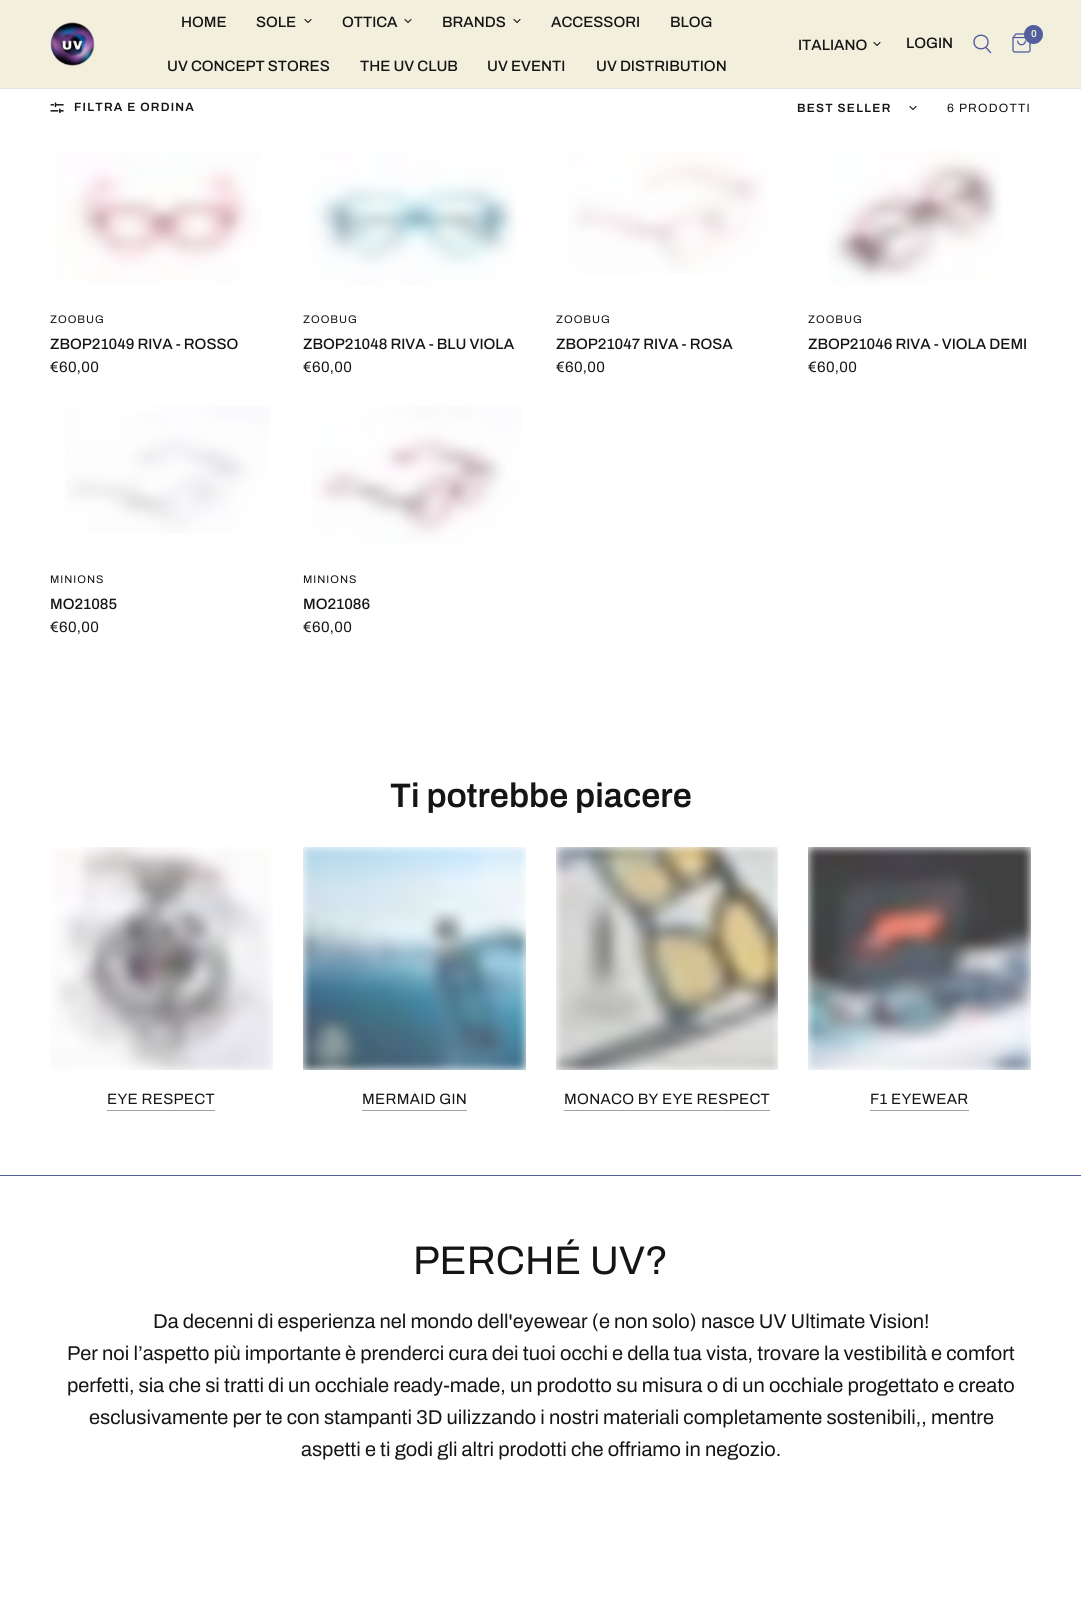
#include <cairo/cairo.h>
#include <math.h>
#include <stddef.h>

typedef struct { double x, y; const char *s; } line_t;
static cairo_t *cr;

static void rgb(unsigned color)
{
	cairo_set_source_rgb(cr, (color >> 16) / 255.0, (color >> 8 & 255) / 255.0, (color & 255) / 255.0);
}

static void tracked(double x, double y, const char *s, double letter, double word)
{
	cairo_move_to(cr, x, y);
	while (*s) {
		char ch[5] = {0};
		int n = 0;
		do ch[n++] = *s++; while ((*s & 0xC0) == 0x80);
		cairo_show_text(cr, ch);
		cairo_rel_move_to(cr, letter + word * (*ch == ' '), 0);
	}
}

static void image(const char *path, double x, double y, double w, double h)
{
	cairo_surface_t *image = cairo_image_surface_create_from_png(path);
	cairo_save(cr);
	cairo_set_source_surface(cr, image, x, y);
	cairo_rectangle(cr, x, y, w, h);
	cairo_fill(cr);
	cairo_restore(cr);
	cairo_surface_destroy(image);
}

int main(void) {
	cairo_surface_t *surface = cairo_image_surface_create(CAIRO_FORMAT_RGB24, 1081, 1617);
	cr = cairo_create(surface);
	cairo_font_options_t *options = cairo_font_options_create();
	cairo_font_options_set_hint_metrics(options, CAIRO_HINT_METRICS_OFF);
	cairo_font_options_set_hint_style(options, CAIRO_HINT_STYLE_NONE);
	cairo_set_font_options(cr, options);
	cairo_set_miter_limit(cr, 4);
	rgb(0xffffff);
	cairo_paint(cr);
	rgb(0xf2efdd);
	cairo_rectangle(cr, 0, 0, 1081, 88);
	cairo_fill(cr);
	rgb(0xe2e2e2);
	cairo_rectangle(cr, 0, 88, 1081, 1);
	cairo_fill(cr);
	image("img/1.png", 50, 22, 45, 44);
	cairo_new_path(cr);
	cairo_move_to(cr, 311, 19.5);
	cairo_line_to(cr, 308, 22.5);
	cairo_line_to(cr, 305, 19.5);
	rgb(0x151515);
	cairo_set_line_width(cr, 1.1);
	cairo_set_line_cap(cr, CAIRO_LINE_CAP_ROUND);
	cairo_set_line_join(cr, CAIRO_LINE_JOIN_ROUND);
	cairo_stroke(cr);
	cairo_new_path(cr);
	cairo_move_to(cr, 411, 19.5);
	cairo_line_to(cr, 408, 22.5);
	cairo_line_to(cr, 405, 19.5);
	cairo_stroke(cr);
	cairo_new_path(cr);
	cairo_move_to(cr, 520, 19.5);
	cairo_line_to(cr, 517, 22.5);
	cairo_line_to(cr, 514, 19.5);
	cairo_stroke(cr);
	cairo_new_path(cr);
	cairo_move_to(cr, 880, 42.5);
	cairo_line_to(cr, 877, 45.5);
	cairo_line_to(cr, 874, 42.5);
	cairo_stroke(cr);
	cairo_new_path(cr);
	cairo_move_to(cr, 986, 47.5);
	cairo_line_to(cr, 990.5, 52.5);
	cairo_move_to(cr, 988, 42);
	cairo_curve_to(cr, 988, 51, 974, 51, 974, 42);
	cairo_curve_to(cr, 974, 33, 988, 33, 988, 42);
	cairo_close_path(cr);
	rgb(0x535e9f);
	cairo_set_line_width(cr, 1.4);
	cairo_stroke(cr);
	image("img/2.png", 1012, 33, 19, 20);
	cairo_arc(cr, 1033.5, 34.5, 9.5, 0, 2 * M_PI);
	cairo_fill(cr);
	image("img/3.png", 50, 102, 14, 11);
	cairo_new_path(cr);
	cairo_move_to(cr, 916, 106.5);
	cairo_line_to(cr, 913, 109.5);
	cairo_line_to(cr, 910, 106.5);
	rgb(0x151515);
	cairo_set_line_width(cr, 1.1);
	cairo_stroke(cr);
	image("img/4.png", 56, 152, 206, 133);
	image("img/5.png", 309, 151, 208, 135);
	image("img/6.png", 568, 151, 199, 123);
	image("img/7.png", 828, 150, 174, 135);
	image("img/8.png", 65, 405, 205, 129);
	image("img/9.png", 311, 405, 211, 139);
	image("img/10.png", 50, 847, 223, 223);
	rgb(0xa1a1a1);
	cairo_rectangle(cr, 107, 1110, 108, 1);
	cairo_fill(cr);
	image("img/11.png", 303, 847, 223, 223);
	cairo_rectangle(cr, 362, 1110, 105, 1);
	cairo_fill(cr);
	image("img/12.png", 556, 847, 222, 223);
	cairo_rectangle(cr, 564, 1110, 206, 1);
	cairo_fill(cr);
	image("img/13.png", 808, 847, 223, 223);
	cairo_rectangle(cr, 870, 1110, 99, 1);
	cairo_fill(cr);
	rgb(0x535e9f);
	cairo_rectangle(cr, 0, 1175, 1081, 1);
	cairo_fill(cr);
	cairo_select_font_face(cr, "Archivo Medium", CAIRO_FONT_SLANT_NORMAL, CAIRO_FONT_WEIGHT_NORMAL);
	cairo_set_font_size(cr, 15);
	rgb(0x151515);
	{
		static const line_t items[] = {
			{181, 27, "HOME"},
			{256, 27, "SOLE"},
			{342, 27, "OTTICA"},
			{442, 27, "BRANDS"},
			{551, 27, "ACCESSORI"},
			{670, 27, "BLOG"},
			{167, 71, "UV CONCEPT STORES"},
			{360, 71, "THE UV CLUB"},
			{487, 71, "UV EVENTI"},
			{596, 71, "UV DISTRIBUTION"},
			{798, 50, "ITALIANO"},
			{906, 48, "LOGIN"},
		};
		for (size_t i = 0; i < sizeof items / sizeof *items; i++) {
			cairo_move_to(cr, items[i].x, items[i].y);
			cairo_show_text(cr, items[i].s);
		}
	}
	cairo_select_font_face(cr, "Archivo SemiBold", CAIRO_FONT_SLANT_NORMAL, CAIRO_FONT_WEIGHT_NORMAL);
	cairo_set_font_size(cr, 10);
	rgb(0xf2efdd);
	cairo_move_to(cr, 1031, 37);
	cairo_show_text(cr, "0");
	cairo_set_font_size(cr, 12);
	rgb(0x151515);
	tracked(74, 111, "FILTRA E ORDINA", 1.25, 0);
	tracked(797, 112, "BEST SELLER", 1.25, 0);
	cairo_select_font_face(cr, "Archivo", CAIRO_FONT_SLANT_NORMAL, CAIRO_FONT_WEIGHT_NORMAL);
	tracked(947, 112, "6 PRODOTTI", 1.25, 0);
	cairo_set_font_size(cr, 11);
	tracked(50, 323, "ZOOBUG", 1, 0);
	cairo_select_font_face(cr, "Archivo Medium", CAIRO_FONT_SLANT_NORMAL, CAIRO_FONT_WEIGHT_NORMAL);
	cairo_set_font_size(cr, 15);
	cairo_move_to(cr, 50, 349);
	cairo_show_text(cr, "ZBOP21049 RIVA - ROSSO");
	cairo_select_font_face(cr, "Archivo", CAIRO_FONT_SLANT_NORMAL, CAIRO_FONT_WEIGHT_NORMAL);
	tracked(50, 372, "€60,00", 0.3, 0);
	cairo_set_font_size(cr, 11);
	tracked(303, 323, "ZOOBUG", 1, 0);
	cairo_select_font_face(cr, "Archivo Medium", CAIRO_FONT_SLANT_NORMAL, CAIRO_FONT_WEIGHT_NORMAL);
	cairo_set_font_size(cr, 15);
	cairo_move_to(cr, 303, 349);
	cairo_show_text(cr, "ZBOP21048 RIVA - BLU VIOLA");
	cairo_select_font_face(cr, "Archivo", CAIRO_FONT_SLANT_NORMAL, CAIRO_FONT_WEIGHT_NORMAL);
	tracked(303, 372, "€60,00", 0.3, 0);
	cairo_set_font_size(cr, 11);
	tracked(556, 323, "ZOOBUG", 1, 0);
	cairo_select_font_face(cr, "Archivo Medium", CAIRO_FONT_SLANT_NORMAL, CAIRO_FONT_WEIGHT_NORMAL);
	cairo_set_font_size(cr, 15);
	cairo_move_to(cr, 556, 349);
	cairo_show_text(cr, "ZBOP21047 RIVA - ROSA");
	cairo_select_font_face(cr, "Archivo", CAIRO_FONT_SLANT_NORMAL, CAIRO_FONT_WEIGHT_NORMAL);
	tracked(556, 372, "€60,00", 0.3, 0);
	cairo_set_font_size(cr, 11);
	tracked(808, 323, "ZOOBUG", 1, 0);
	cairo_select_font_face(cr, "Archivo Medium", CAIRO_FONT_SLANT_NORMAL, CAIRO_FONT_WEIGHT_NORMAL);
	cairo_set_font_size(cr, 15);
	cairo_move_to(cr, 808, 349);
	cairo_show_text(cr, "ZBOP21046 RIVA - VIOLA DEMI");
	cairo_select_font_face(cr, "Archivo", CAIRO_FONT_SLANT_NORMAL, CAIRO_FONT_WEIGHT_NORMAL);
	tracked(808, 372, "€60,00", 0.3, 0);
	cairo_set_font_size(cr, 11);
	tracked(50, 583, "MINIONS", 1, 0);
	cairo_select_font_face(cr, "Archivo Medium", CAIRO_FONT_SLANT_NORMAL, CAIRO_FONT_WEIGHT_NORMAL);
	cairo_set_font_size(cr, 15);
	cairo_move_to(cr, 50, 609);
	cairo_show_text(cr, "MO21085");
	cairo_select_font_face(cr, "Archivo", CAIRO_FONT_SLANT_NORMAL, CAIRO_FONT_WEIGHT_NORMAL);
	tracked(50, 632, "€60,00", 0.3, 0);
	cairo_set_font_size(cr, 11);
	tracked(303, 583, "MINIONS", 1, 0);
	cairo_select_font_face(cr, "Archivo Medium", CAIRO_FONT_SLANT_NORMAL, CAIRO_FONT_WEIGHT_NORMAL);
	cairo_set_font_size(cr, 15);
	cairo_move_to(cr, 303, 609);
	cairo_show_text(cr, "MO21086");
	cairo_select_font_face(cr, "Archivo", CAIRO_FONT_SLANT_NORMAL, CAIRO_FONT_WEIGHT_NORMAL);
	tracked(303, 632, "€60,00", 0.3, 0);
	cairo_select_font_face(cr, "Archivo SemiBold", CAIRO_FONT_SLANT_NORMAL, CAIRO_FONT_WEIGHT_NORMAL);
	cairo_set_font_size(cr, 34);
	cairo_move_to(cr, 390, 807);
	cairo_show_text(cr, "Ti potrebbe piacere");
	cairo_select_font_face(cr, "Archivo", CAIRO_FONT_SLANT_NORMAL, CAIRO_FONT_WEIGHT_NORMAL);
	cairo_set_font_size(cr, 15);
	{
		static const line_t items[] = {
			{107, 1104, "EYE RESPECT"},
			{362, 1104, "MERMAID GIN"},
			{564, 1104, "MONACO BY EYE RESPECT"},
			{870, 1104, "F1 EYEWEAR"},
		};
		for (size_t i = 0; i < sizeof items / sizeof *items; i++) {
			tracked(items[i].x, items[i].y, items[i].s, 0.3, 0);
		}
	}
	cairo_set_font_size(cr, 40);
	cairo_move_to(cr, 413, 1274);
	cairo_show_text(cr, "PERCHÉ UV?");
	cairo_set_font_size(cr, 20);
	{
		static const line_t items[] = {
			{153, 1328, "Da decenni di esperienza nel mondo dell'eyewear (e non solo) nasce UV Ultimate Vision!"},
			{67, 1360, "Per noi l’aspetto più importante è prenderci cura dei tuoi occhi e della tua vista, trovare la vestibilità e comfort"},
			{67, 1392, "perfetti, sia che si tratti di un occhiale ready-made, un prodotto su misura o di un occhiale progettato e creato"},
			{89, 1424, "esclusivamente per te con stampanti 3D uilizzando i nostri materiali completamente sostenibili,, mentre"},
			{301, 1456, "aspetti e ti godi gli altri prodotti che offriamo in negozio."},
		};
		for (size_t i = 0; i < sizeof items / sizeof *items; i++) {
			cairo_move_to(cr, items[i].x, items[i].y);
			cairo_show_text(cr, items[i].s);
		}
	}
	cairo_surface_write_to_png(surface, "page.png");
	cairo_font_options_destroy(options);
	cairo_destroy(cr);
	cairo_surface_destroy(surface);
	return 0;
}
